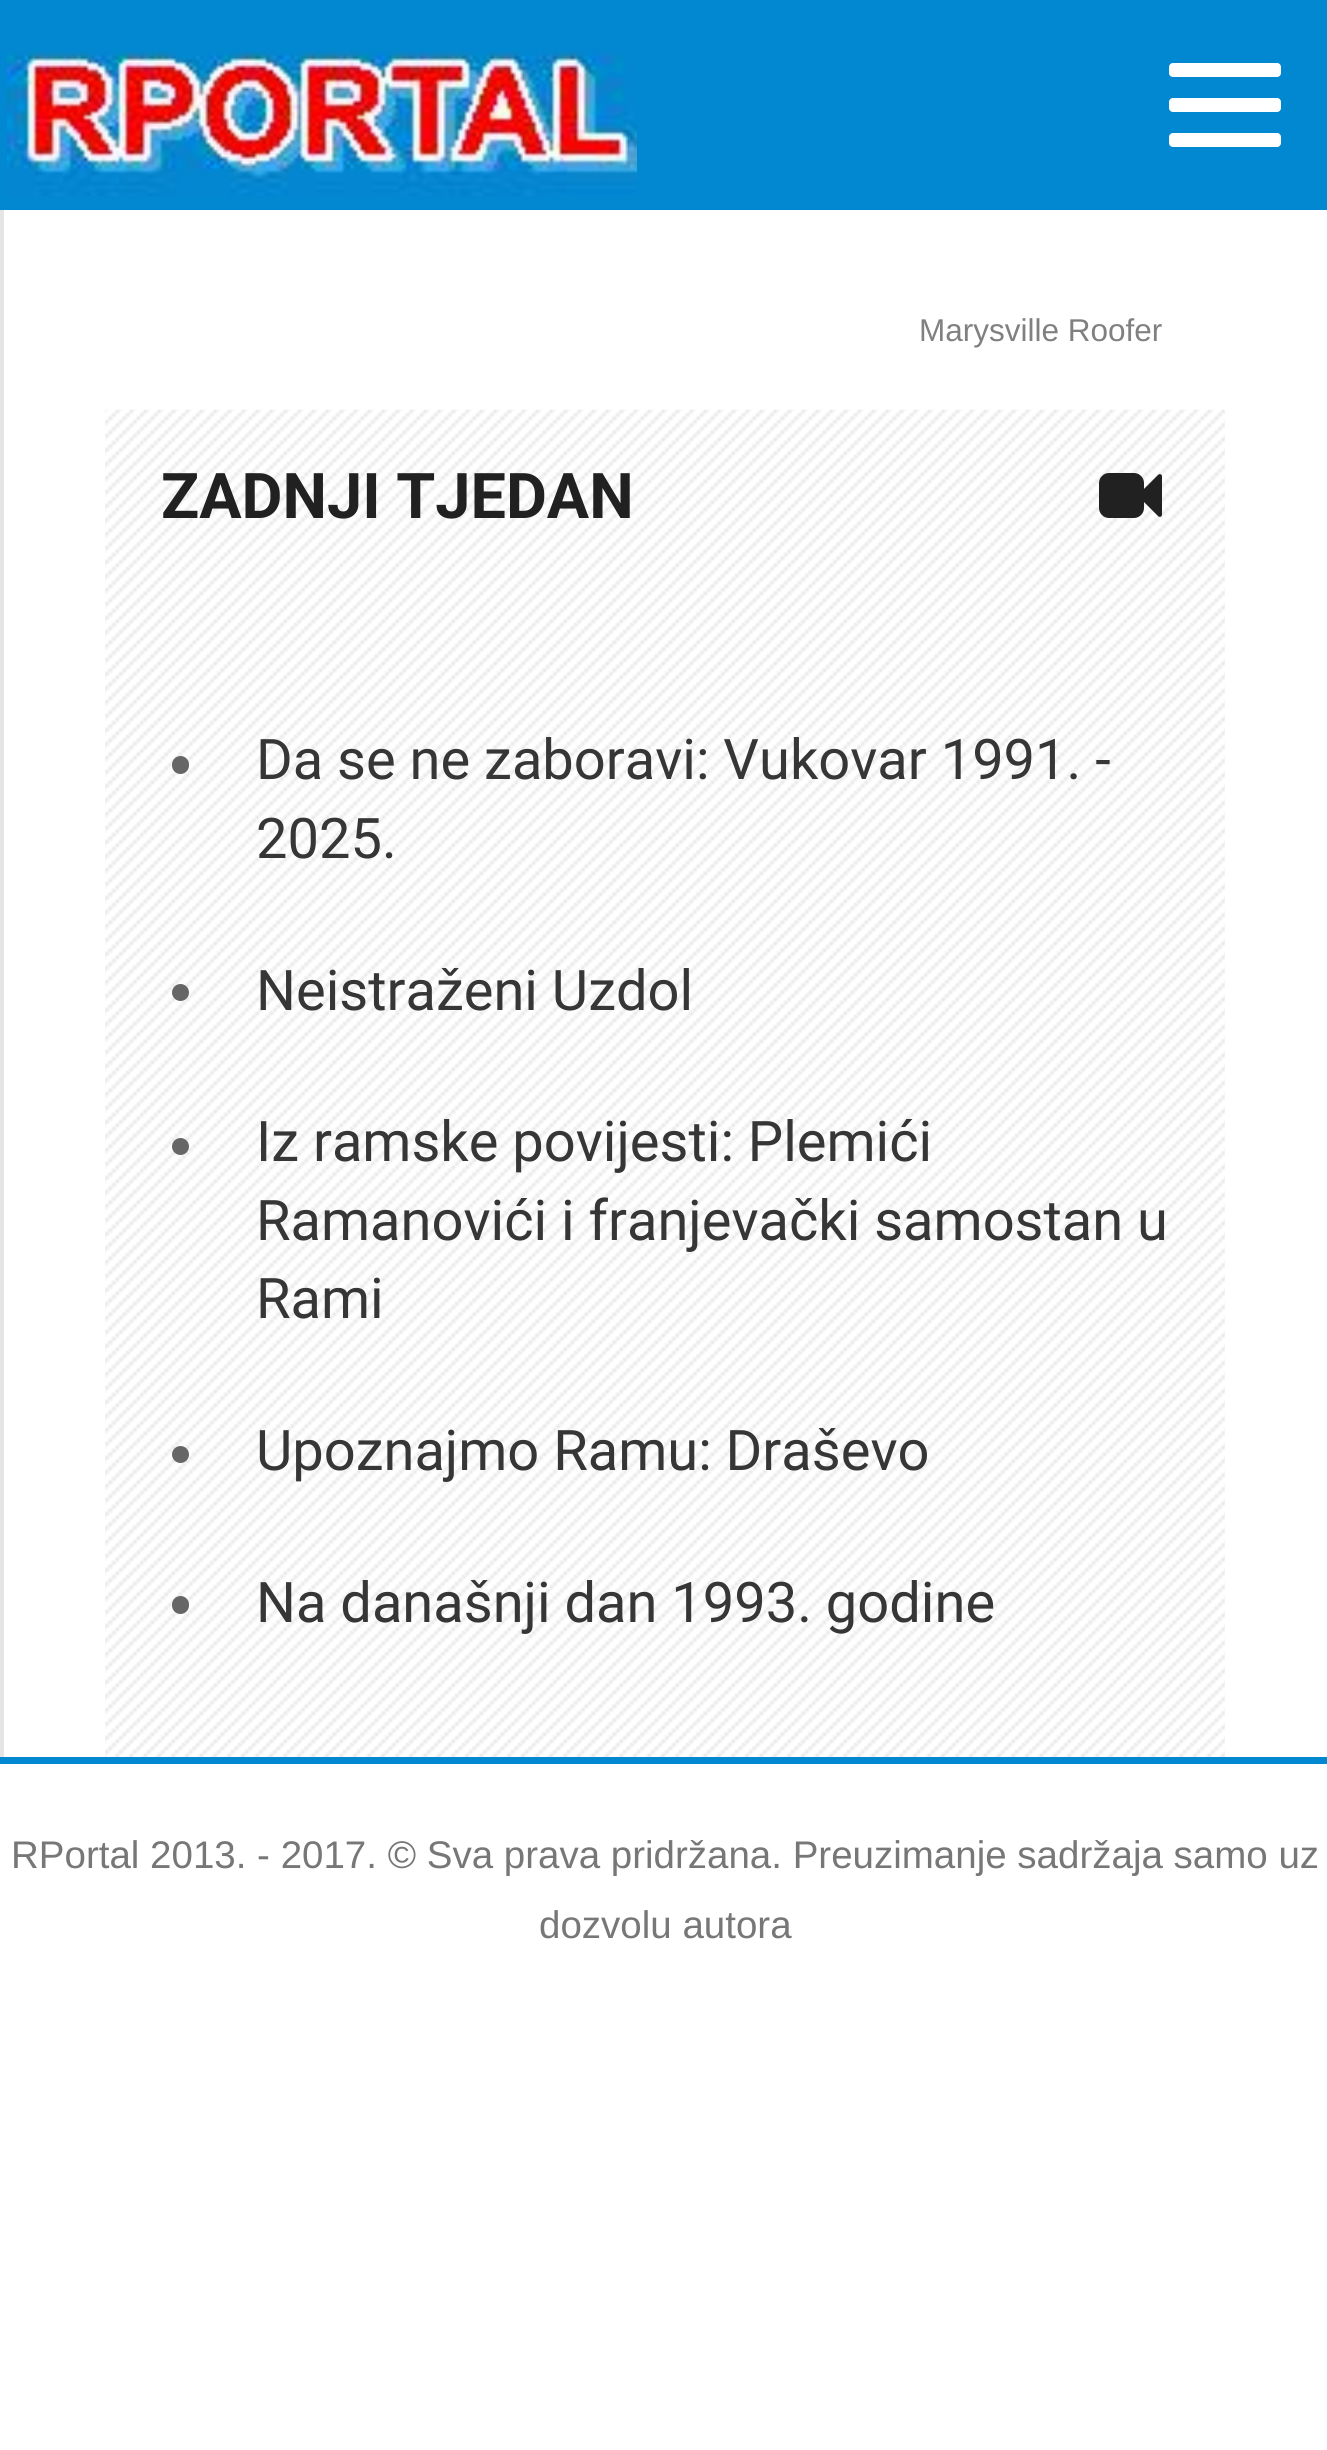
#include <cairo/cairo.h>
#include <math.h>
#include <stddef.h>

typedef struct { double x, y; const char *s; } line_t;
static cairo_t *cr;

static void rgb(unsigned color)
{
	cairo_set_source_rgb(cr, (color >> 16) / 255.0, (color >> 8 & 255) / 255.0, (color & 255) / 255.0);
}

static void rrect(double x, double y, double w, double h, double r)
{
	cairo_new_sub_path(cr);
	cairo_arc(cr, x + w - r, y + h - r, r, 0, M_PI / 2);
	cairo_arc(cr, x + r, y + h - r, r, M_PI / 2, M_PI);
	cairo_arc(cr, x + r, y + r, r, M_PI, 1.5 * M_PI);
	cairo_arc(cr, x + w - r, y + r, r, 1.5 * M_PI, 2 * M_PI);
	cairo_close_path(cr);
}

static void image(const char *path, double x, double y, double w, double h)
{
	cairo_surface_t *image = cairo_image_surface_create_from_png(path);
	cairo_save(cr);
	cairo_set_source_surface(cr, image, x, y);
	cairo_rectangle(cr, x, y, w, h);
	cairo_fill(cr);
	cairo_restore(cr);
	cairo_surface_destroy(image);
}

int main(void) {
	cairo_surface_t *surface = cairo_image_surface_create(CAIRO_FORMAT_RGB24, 1327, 2450);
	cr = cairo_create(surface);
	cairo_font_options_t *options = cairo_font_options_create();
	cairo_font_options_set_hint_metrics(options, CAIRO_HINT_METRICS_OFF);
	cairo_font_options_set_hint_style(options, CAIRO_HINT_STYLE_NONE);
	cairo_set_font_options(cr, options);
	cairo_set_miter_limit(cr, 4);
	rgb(0xffffff);
	cairo_paint(cr);
	rgb(0x0288d1);
	cairo_rectangle(cr, 0, 0, 1327, 210);
	cairo_fill(cr);
	image("img/1.png", 7, 51, 630, 145);
	rgb(0xffffff);
	rrect(1169, 98, 112, 14, 4);
	cairo_fill(cr);
	rrect(1169, 63, 112, 14, 4);
	cairo_fill(cr);
	rrect(1169, 133, 112, 14, 4);
	cairo_fill(cr);
	rgb(0xe5e5e5);
	cairo_rectangle(cr, 0, 210, 4, 1547);
	cairo_fill(cr);
	image("img/2.png", 105, 409, 1120, 1348);
	image("img/3.png", 1099, 473, 63, 45);
	rgb(0x666666);
	rrect(172, 756, 17, 18, 8.5);
	cairo_fill(cr);
	cairo_arc(cr, 180.5, 992.5, 8.5, 0, 2 * M_PI);
	cairo_fill(cr);
	cairo_arc(cr, 180.5, 1146.5, 8.5, 0, 2 * M_PI);
	cairo_fill(cr);
	cairo_arc(cr, 180.5, 1454.5, 8.5, 0, 2 * M_PI);
	cairo_fill(cr);
	rrect(172, 1596, 17, 18, 8.5);
	cairo_fill(cr);
	rgb(0x0288d1);
	cairo_rectangle(cr, 0, 1757, 1327, 7);
	cairo_fill(cr);
	cairo_select_font_face(cr, "Liberation Sans", CAIRO_FONT_SLANT_NORMAL, CAIRO_FONT_WEIGHT_NORMAL);
	cairo_set_font_size(cr, 31.5);
	rgb(0x808080);
	cairo_move_to(cr, 919, 341);
	cairo_show_text(cr, "Marysville Roofer");
	cairo_select_font_face(cr, "Roboto", CAIRO_FONT_SLANT_NORMAL, CAIRO_FONT_WEIGHT_BOLD);
	cairo_set_font_size(cr, 63);
	rgb(0x212121);
	cairo_move_to(cr, 161, 518);
	cairo_show_text(cr, "ZADNJI TJEDAN");
	cairo_select_font_face(cr, "Roboto", CAIRO_FONT_SLANT_NORMAL, CAIRO_FONT_WEIGHT_NORMAL);
	cairo_set_font_size(cr, 56);
	rgb(0x363636);
	{
		static const line_t items[] = {
			{256, 779, "Da se ne zaboravi: Vukovar 1991. -"},
			{256, 858, "2025."},
			{256, 1010, "Neistraženi Uzdol"},
			{256, 1161, "Iz ramske povijesti: Plemići"},
			{256, 1240, "Ramanovići i franjevački samostan u"},
			{256, 1318, "Rami"},
			{256, 1470, "Upoznajmo Ramu: Draševo"},
			{256, 1622, "Na današnji dan 1993. godine"},
		};
		for (size_t i = 0; i < sizeof items / sizeof *items; i++) {
			cairo_move_to(cr, items[i].x, items[i].y);
			cairo_show_text(cr, items[i].s);
		}
	}
	cairo_select_font_face(cr, "Liberation Sans", CAIRO_FONT_SLANT_NORMAL, CAIRO_FONT_WEIGHT_NORMAL);
	cairo_set_font_size(cr, 38.5);
	rgb(0x777777);
	cairo_move_to(cr, 11, 1868);
	cairo_show_text(cr, "RPortal 2013. - 2017. © Sva prava pridržana. Preuzimanje sadržaja samo uz");
	cairo_move_to(cr, 539, 1938);
	cairo_show_text(cr, "dozvolu autora");
	cairo_surface_write_to_png(surface, "page.png");
	cairo_font_options_destroy(options);
	cairo_destroy(cr);
	cairo_surface_destroy(surface);
	return 0;
}
